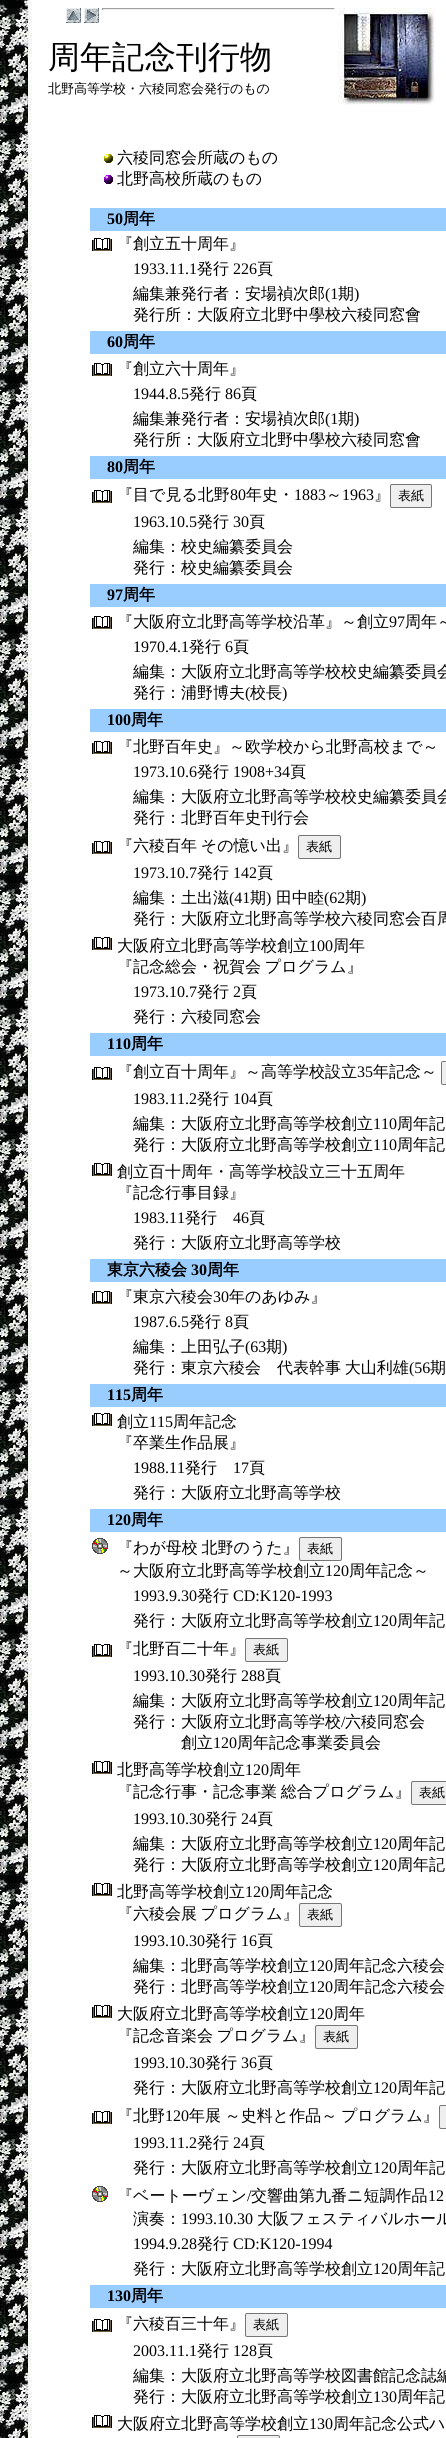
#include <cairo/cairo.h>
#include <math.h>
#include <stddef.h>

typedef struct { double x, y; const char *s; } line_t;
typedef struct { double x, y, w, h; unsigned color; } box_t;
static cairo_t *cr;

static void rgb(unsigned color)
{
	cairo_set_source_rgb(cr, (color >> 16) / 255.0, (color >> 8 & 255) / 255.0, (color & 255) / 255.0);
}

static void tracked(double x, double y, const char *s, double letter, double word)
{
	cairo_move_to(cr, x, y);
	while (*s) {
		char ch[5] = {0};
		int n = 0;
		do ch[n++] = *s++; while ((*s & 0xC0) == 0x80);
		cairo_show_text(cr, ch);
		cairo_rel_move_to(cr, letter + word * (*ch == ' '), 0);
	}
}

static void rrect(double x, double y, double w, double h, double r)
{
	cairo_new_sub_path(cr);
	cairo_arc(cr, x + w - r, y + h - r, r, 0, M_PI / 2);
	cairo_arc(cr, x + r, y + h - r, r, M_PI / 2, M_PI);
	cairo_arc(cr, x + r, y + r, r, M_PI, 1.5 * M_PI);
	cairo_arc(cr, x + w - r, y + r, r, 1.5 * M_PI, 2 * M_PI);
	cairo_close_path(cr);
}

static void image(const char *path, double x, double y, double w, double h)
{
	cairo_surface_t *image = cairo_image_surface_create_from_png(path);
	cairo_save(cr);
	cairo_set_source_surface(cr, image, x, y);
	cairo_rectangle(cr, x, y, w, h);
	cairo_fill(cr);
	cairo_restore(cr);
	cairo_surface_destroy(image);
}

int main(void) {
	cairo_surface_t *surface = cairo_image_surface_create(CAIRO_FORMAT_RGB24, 446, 2438);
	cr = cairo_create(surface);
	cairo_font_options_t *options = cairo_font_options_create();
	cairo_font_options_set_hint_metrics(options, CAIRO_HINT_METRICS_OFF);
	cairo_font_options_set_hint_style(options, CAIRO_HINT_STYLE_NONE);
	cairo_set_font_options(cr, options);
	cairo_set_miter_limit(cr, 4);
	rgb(0xffffff);
	cairo_paint(cr);
	image("img/1.png", 0, 0, 32, 2438);
	image("img/2.png", 66, 8, 15, 15);
	image("img/3.png", 84, 8, 15, 15);
	{
		static const box_t items[] = {
			{102, 8, 233, 1, 0x9f9f9f},
			{334, 8, 1, 2, 0xeeeeee},
			{102, 9, 233, 1, 0xeeeeee},
			{102, 8, 1, 2, 0x9f9f9f},
		};
		for (size_t i = 0; i < sizeof items / sizeof *items; i++) {
			rgb(items[i].color);
			cairo_rectangle(cr, items[i].x, items[i].y, items[i].w, items[i].h);
			cairo_fill(cr);
		}
	}
	image("img/4.png", 338, 8, 97, 97);
	image("img/5.png", 104, 154, 9, 9);
	image("img/6.png", 104, 175, 9, 9);
	rgb(0x99ccff);
	cairo_rectangle(cr, 90, 208, 356, 23);
	cairo_fill(cr);
	image("img/7.png", 92, 238, 20, 13);
	cairo_rectangle(cr, 90, 331, 356, 23);
	cairo_fill(cr);
	image("img/7.png", 92, 363, 20, 13);
	cairo_rectangle(cr, 90, 456, 356, 23);
	cairo_fill(cr);
	image("img/7.png", 92, 490, 20, 13);
	rgb(0xefefef);
	rrect(390.5, 484.5, 41, 23, 1.5);
	cairo_fill_preserve(cr);
	rgb(0x767676);
	cairo_set_line_width(cr, 1);
	cairo_stroke(cr);
	rgb(0x99ccff);
	cairo_rectangle(cr, 90, 584, 356, 23);
	cairo_fill(cr);
	image("img/7.png", 92, 616, 20, 13);
	cairo_rectangle(cr, 90, 709, 356, 23);
	cairo_fill(cr);
	image("img/7.png", 92, 741, 20, 13);
	image("img/7.png", 92, 841, 20, 13);
	rgb(0xefefef);
	rrect(298.5, 835.5, 42, 23, 1.5);
	cairo_fill_preserve(cr);
	rgb(0x767676);
	cairo_stroke(cr);
	image("img/7.png", 92, 937, 20, 13);
	rgb(0x99ccff);
	cairo_rectangle(cr, 90, 1033, 356, 23);
	cairo_fill(cr);
	image("img/7.png", 92, 1067, 20, 13);
	rgb(0xefefef);
	rrect(441.5, 1061.5, 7, 23, 1.5);
	cairo_fill_preserve(cr);
	rgb(0x767676);
	cairo_stroke(cr);
	image("img/7.png", 92, 1163, 20, 13);
	rgb(0x99ccff);
	cairo_rectangle(cr, 90, 1259, 356, 23);
	cairo_fill(cr);
	image("img/7.png", 92, 1291, 20, 13);
	cairo_rectangle(cr, 90, 1384, 356, 23);
	cairo_fill(cr);
	image("img/7.png", 92, 1413, 20, 13);
	cairo_rectangle(cr, 90, 1509, 356, 23);
	cairo_fill(cr);
	image("img/8.png", 92, 1538, 16, 16);
	rgb(0xefefef);
	rrect(299.5, 1537.5, 42, 23, 1.5);
	cairo_fill_preserve(cr);
	rgb(0x767676);
	cairo_stroke(cr);
	image("img/7.png", 92, 1644, 20, 13);
	rgb(0xefefef);
	rrect(245.5, 1638.5, 42, 23, 1.5);
	cairo_fill_preserve(cr);
	rgb(0x767676);
	cairo_stroke(cr);
	image("img/7.png", 92, 1761, 20, 13);
	rgb(0xefefef);
	rrect(411.5, 1781.5, 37, 23, 1.5);
	cairo_fill_preserve(cr);
	rgb(0x767676);
	cairo_stroke(cr);
	image("img/7.png", 92, 1883, 20, 13);
	rgb(0xefefef);
	rrect(299.5, 1903.5, 42, 23, 1.5);
	cairo_fill_preserve(cr);
	rgb(0x767676);
	cairo_stroke(cr);
	image("img/7.png", 92, 2005, 20, 13);
	rgb(0xefefef);
	rrect(315.5, 2025.5, 42, 23, 1.5);
	cairo_fill_preserve(cr);
	rgb(0x767676);
	cairo_stroke(cr);
	image("img/7.png", 92, 2111, 20, 13);
	rgb(0xefefef);
	rrect(439.5, 2105.5, 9, 23, 1.5);
	cairo_fill_preserve(cr);
	rgb(0x767676);
	cairo_stroke(cr);
	image("img/8.png", 92, 2186, 16, 16);
	rgb(0x99ccff);
	cairo_rectangle(cr, 90, 2285, 356, 23);
	cairo_fill(cr);
	image("img/7.png", 92, 2319, 20, 13);
	rgb(0xefefef);
	rrect(245.5, 2313.5, 42, 23, 1.5);
	cairo_fill_preserve(cr);
	rgb(0x767676);
	cairo_stroke(cr);
	image("img/7.png", 92, 2415, 20, 13);
	rgb(0xefefef);
	rrect(237.5, 2435.5, 42, 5, 1.5);
	cairo_fill_preserve(cr);
	rgb(0x767676);
	cairo_stroke(cr);
	cairo_select_font_face(cr, "WenQuanYi Zen Hei Medium", CAIRO_FONT_SLANT_NORMAL, CAIRO_FONT_WEIGHT_NORMAL);
	cairo_set_font_size(cr, 32);
	rgb(0x000000);
	cairo_move_to(cr, 48, 68);
	cairo_show_text(cr, "周年記念刊行物");
	cairo_set_font_size(cr, 13);
	cairo_move_to(cr, 48, 93);
	cairo_show_text(cr, "北野高等学校・六稜同窓会発行のもの");
	cairo_set_font_size(cr, 16);
	cairo_move_to(cr, 117, 163);
	cairo_show_text(cr, "六稜同窓会所蔵のもの");
	cairo_move_to(cr, 117, 184);
	cairo_show_text(cr, "北野高校所蔵のもの");
	cairo_select_font_face(cr, "Liberation Serif", CAIRO_FONT_SLANT_NORMAL, CAIRO_FONT_WEIGHT_BOLD);
	cairo_move_to(cr, 107, 224);
	cairo_show_text(cr, "50");
	cairo_select_font_face(cr, "WenQuanYi Zen Hei", CAIRO_FONT_SLANT_NORMAL, CAIRO_FONT_WEIGHT_BOLD);
	cairo_move_to(cr, 123, 224);
	cairo_show_text(cr, "周年");
	cairo_select_font_face(cr, "WenQuanYi Zen Hei Medium", CAIRO_FONT_SLANT_NORMAL, CAIRO_FONT_WEIGHT_NORMAL);
	cairo_move_to(cr, 117, 249);
	cairo_show_text(cr, "『創立五十周年』");
	cairo_select_font_face(cr, "Liberation Serif", CAIRO_FONT_SLANT_NORMAL, CAIRO_FONT_WEIGHT_NORMAL);
	cairo_move_to(cr, 133, 274);
	cairo_show_text(cr, "1933.11.1");
	cairo_select_font_face(cr, "WenQuanYi Zen Hei Medium", CAIRO_FONT_SLANT_NORMAL, CAIRO_FONT_WEIGHT_NORMAL);
	cairo_move_to(cr, 197, 274);
	cairo_show_text(cr, "発行");
	cairo_select_font_face(cr, "Liberation Serif", CAIRO_FONT_SLANT_NORMAL, CAIRO_FONT_WEIGHT_NORMAL);
	cairo_move_to(cr, 233, 274);
	cairo_show_text(cr, "226");
	cairo_select_font_face(cr, "WenQuanYi Zen Hei Medium", CAIRO_FONT_SLANT_NORMAL, CAIRO_FONT_WEIGHT_NORMAL);
	cairo_move_to(cr, 257, 274);
	cairo_show_text(cr, "頁");
	cairo_move_to(cr, 133, 299);
	cairo_show_text(cr, "編集兼発行者：安場禎次郎");
	cairo_select_font_face(cr, "Liberation Serif", CAIRO_FONT_SLANT_NORMAL, CAIRO_FONT_WEIGHT_NORMAL);
	cairo_move_to(cr, 325, 299);
	cairo_show_text(cr, "(1");
	cairo_select_font_face(cr, "WenQuanYi Zen Hei Medium", CAIRO_FONT_SLANT_NORMAL, CAIRO_FONT_WEIGHT_NORMAL);
	cairo_move_to(cr, 338, 299);
	cairo_show_text(cr, "期");
	cairo_select_font_face(cr, "Liberation Serif", CAIRO_FONT_SLANT_NORMAL, CAIRO_FONT_WEIGHT_NORMAL);
	cairo_move_to(cr, 354, 299);
	cairo_show_text(cr, ")");
	cairo_select_font_face(cr, "WenQuanYi Zen Hei Medium", CAIRO_FONT_SLANT_NORMAL, CAIRO_FONT_WEIGHT_NORMAL);
	cairo_move_to(cr, 133, 320);
	cairo_show_text(cr, "発行所：大阪府立北野中學校六稜同窓會");
	cairo_select_font_face(cr, "Liberation Serif", CAIRO_FONT_SLANT_NORMAL, CAIRO_FONT_WEIGHT_BOLD);
	cairo_move_to(cr, 107, 347);
	cairo_show_text(cr, "60");
	cairo_select_font_face(cr, "WenQuanYi Zen Hei", CAIRO_FONT_SLANT_NORMAL, CAIRO_FONT_WEIGHT_BOLD);
	cairo_move_to(cr, 123, 347);
	cairo_show_text(cr, "周年");
	cairo_select_font_face(cr, "WenQuanYi Zen Hei Medium", CAIRO_FONT_SLANT_NORMAL, CAIRO_FONT_WEIGHT_NORMAL);
	cairo_move_to(cr, 117, 374);
	cairo_show_text(cr, "『創立六十周年』");
	cairo_select_font_face(cr, "Liberation Serif", CAIRO_FONT_SLANT_NORMAL, CAIRO_FONT_WEIGHT_NORMAL);
	cairo_move_to(cr, 133, 399);
	cairo_show_text(cr, "1944.8.5");
	cairo_select_font_face(cr, "WenQuanYi Zen Hei Medium", CAIRO_FONT_SLANT_NORMAL, CAIRO_FONT_WEIGHT_NORMAL);
	cairo_move_to(cr, 189, 399);
	cairo_show_text(cr, "発行");
	cairo_select_font_face(cr, "Liberation Serif", CAIRO_FONT_SLANT_NORMAL, CAIRO_FONT_WEIGHT_NORMAL);
	cairo_move_to(cr, 225, 399);
	cairo_show_text(cr, "86");
	cairo_select_font_face(cr, "WenQuanYi Zen Hei Medium", CAIRO_FONT_SLANT_NORMAL, CAIRO_FONT_WEIGHT_NORMAL);
	cairo_move_to(cr, 241, 399);
	cairo_show_text(cr, "頁");
	cairo_move_to(cr, 133, 424);
	cairo_show_text(cr, "編集兼発行者：安場禎次郎");
	cairo_select_font_face(cr, "Liberation Serif", CAIRO_FONT_SLANT_NORMAL, CAIRO_FONT_WEIGHT_NORMAL);
	cairo_move_to(cr, 325, 424);
	cairo_show_text(cr, "(1");
	cairo_select_font_face(cr, "WenQuanYi Zen Hei Medium", CAIRO_FONT_SLANT_NORMAL, CAIRO_FONT_WEIGHT_NORMAL);
	cairo_move_to(cr, 338, 424);
	cairo_show_text(cr, "期");
	cairo_select_font_face(cr, "Liberation Serif", CAIRO_FONT_SLANT_NORMAL, CAIRO_FONT_WEIGHT_NORMAL);
	cairo_move_to(cr, 354, 424);
	cairo_show_text(cr, ")");
	cairo_select_font_face(cr, "WenQuanYi Zen Hei Medium", CAIRO_FONT_SLANT_NORMAL, CAIRO_FONT_WEIGHT_NORMAL);
	cairo_move_to(cr, 133, 445);
	cairo_show_text(cr, "発行所：大阪府立北野中學校六稜同窓會");
	cairo_select_font_face(cr, "Liberation Serif", CAIRO_FONT_SLANT_NORMAL, CAIRO_FONT_WEIGHT_BOLD);
	cairo_move_to(cr, 107, 472);
	cairo_show_text(cr, "80");
	cairo_select_font_face(cr, "WenQuanYi Zen Hei", CAIRO_FONT_SLANT_NORMAL, CAIRO_FONT_WEIGHT_BOLD);
	cairo_move_to(cr, 123, 472);
	cairo_show_text(cr, "周年");
	cairo_select_font_face(cr, "WenQuanYi Zen Hei Medium", CAIRO_FONT_SLANT_NORMAL, CAIRO_FONT_WEIGHT_NORMAL);
	cairo_move_to(cr, 117, 500);
	cairo_show_text(cr, "『目で見る北野");
	cairo_select_font_face(cr, "Liberation Serif", CAIRO_FONT_SLANT_NORMAL, CAIRO_FONT_WEIGHT_NORMAL);
	cairo_move_to(cr, 230, 500);
	cairo_show_text(cr, "80");
	cairo_select_font_face(cr, "WenQuanYi Zen Hei Medium", CAIRO_FONT_SLANT_NORMAL, CAIRO_FONT_WEIGHT_NORMAL);
	cairo_move_to(cr, 246, 500);
	cairo_show_text(cr, "年史・");
	cairo_select_font_face(cr, "Liberation Serif", CAIRO_FONT_SLANT_NORMAL, CAIRO_FONT_WEIGHT_NORMAL);
	cairo_move_to(cr, 294, 500);
	cairo_show_text(cr, "1883");
	cairo_select_font_face(cr, "WenQuanYi Zen Hei Medium", CAIRO_FONT_SLANT_NORMAL, CAIRO_FONT_WEIGHT_NORMAL);
	cairo_move_to(cr, 326, 500);
	cairo_show_text(cr, "～");
	cairo_select_font_face(cr, "Liberation Serif", CAIRO_FONT_SLANT_NORMAL, CAIRO_FONT_WEIGHT_NORMAL);
	cairo_move_to(cr, 342, 500);
	cairo_show_text(cr, "1963");
	cairo_select_font_face(cr, "WenQuanYi Zen Hei Medium", CAIRO_FONT_SLANT_NORMAL, CAIRO_FONT_WEIGHT_NORMAL);
	cairo_move_to(cr, 374, 500);
	cairo_show_text(cr, "』");
	cairo_set_font_size(cr, 13);
	cairo_move_to(cr, 398, 500);
	cairo_show_text(cr, "表紙");
	cairo_select_font_face(cr, "Liberation Serif", CAIRO_FONT_SLANT_NORMAL, CAIRO_FONT_WEIGHT_NORMAL);
	cairo_set_font_size(cr, 16);
	cairo_move_to(cr, 133, 527);
	cairo_show_text(cr, "1963.10.5");
	cairo_select_font_face(cr, "WenQuanYi Zen Hei Medium", CAIRO_FONT_SLANT_NORMAL, CAIRO_FONT_WEIGHT_NORMAL);
	cairo_move_to(cr, 197, 527);
	cairo_show_text(cr, "発行");
	cairo_select_font_face(cr, "Liberation Serif", CAIRO_FONT_SLANT_NORMAL, CAIRO_FONT_WEIGHT_NORMAL);
	cairo_move_to(cr, 233, 527);
	cairo_show_text(cr, "30");
	cairo_select_font_face(cr, "WenQuanYi Zen Hei Medium", CAIRO_FONT_SLANT_NORMAL, CAIRO_FONT_WEIGHT_NORMAL);
	{
		static const line_t items[] = {
			{249, 527, "頁"},
			{133, 552, "編集：校史編纂委員会"},
			{133, 573, "発行：校史編纂委員会"},
		};
		for (size_t i = 0; i < sizeof items / sizeof *items; i++) {
			cairo_move_to(cr, items[i].x, items[i].y);
			cairo_show_text(cr, items[i].s);
		}
	}
	cairo_select_font_face(cr, "Liberation Serif", CAIRO_FONT_SLANT_NORMAL, CAIRO_FONT_WEIGHT_BOLD);
	cairo_move_to(cr, 107, 600);
	cairo_show_text(cr, "97");
	cairo_select_font_face(cr, "WenQuanYi Zen Hei", CAIRO_FONT_SLANT_NORMAL, CAIRO_FONT_WEIGHT_BOLD);
	cairo_move_to(cr, 123, 600);
	cairo_show_text(cr, "周年");
	cairo_select_font_face(cr, "WenQuanYi Zen Hei Medium", CAIRO_FONT_SLANT_NORMAL, CAIRO_FONT_WEIGHT_NORMAL);
	cairo_move_to(cr, 117, 627);
	cairo_show_text(cr, "『大阪府立北野高等学校沿革』～創立");
	cairo_select_font_face(cr, "Liberation Serif", CAIRO_FONT_SLANT_NORMAL, CAIRO_FONT_WEIGHT_NORMAL);
	cairo_move_to(cr, 389, 627);
	cairo_show_text(cr, "97");
	cairo_select_font_face(cr, "WenQuanYi Zen Hei Medium", CAIRO_FONT_SLANT_NORMAL, CAIRO_FONT_WEIGHT_NORMAL);
	cairo_move_to(cr, 405, 627);
	cairo_show_text(cr, "周年～");
	cairo_select_font_face(cr, "Liberation Serif", CAIRO_FONT_SLANT_NORMAL, CAIRO_FONT_WEIGHT_NORMAL);
	cairo_move_to(cr, 133, 652);
	cairo_show_text(cr, "1970.4.1");
	cairo_select_font_face(cr, "WenQuanYi Zen Hei Medium", CAIRO_FONT_SLANT_NORMAL, CAIRO_FONT_WEIGHT_NORMAL);
	cairo_move_to(cr, 189, 652);
	cairo_show_text(cr, "発行");
	cairo_select_font_face(cr, "Liberation Serif", CAIRO_FONT_SLANT_NORMAL, CAIRO_FONT_WEIGHT_NORMAL);
	cairo_move_to(cr, 225, 652);
	cairo_show_text(cr, "6");
	cairo_select_font_face(cr, "WenQuanYi Zen Hei Medium", CAIRO_FONT_SLANT_NORMAL, CAIRO_FONT_WEIGHT_NORMAL);
	{
		static const line_t items[] = {
			{233, 652, "頁"},
			{133, 677, "編集：大阪府立北野高等学校校史編纂委員会"},
			{133, 698, "発行：浦野博夫"},
		};
		for (size_t i = 0; i < sizeof items / sizeof *items; i++) {
			cairo_move_to(cr, items[i].x, items[i].y);
			cairo_show_text(cr, items[i].s);
		}
	}
	cairo_select_font_face(cr, "Liberation Serif", CAIRO_FONT_SLANT_NORMAL, CAIRO_FONT_WEIGHT_NORMAL);
	cairo_move_to(cr, 245, 698);
	cairo_show_text(cr, "(");
	cairo_select_font_face(cr, "WenQuanYi Zen Hei Medium", CAIRO_FONT_SLANT_NORMAL, CAIRO_FONT_WEIGHT_NORMAL);
	cairo_move_to(cr, 250, 698);
	cairo_show_text(cr, "校長");
	cairo_select_font_face(cr, "Liberation Serif", CAIRO_FONT_SLANT_NORMAL, CAIRO_FONT_WEIGHT_NORMAL);
	cairo_move_to(cr, 282, 698);
	cairo_show_text(cr, ")");
	cairo_select_font_face(cr, "Liberation Serif", CAIRO_FONT_SLANT_NORMAL, CAIRO_FONT_WEIGHT_BOLD);
	cairo_move_to(cr, 107, 725);
	cairo_show_text(cr, "100");
	cairo_select_font_face(cr, "WenQuanYi Zen Hei", CAIRO_FONT_SLANT_NORMAL, CAIRO_FONT_WEIGHT_BOLD);
	cairo_move_to(cr, 131, 725);
	cairo_show_text(cr, "周年");
	cairo_select_font_face(cr, "WenQuanYi Zen Hei Medium", CAIRO_FONT_SLANT_NORMAL, CAIRO_FONT_WEIGHT_NORMAL);
	cairo_move_to(cr, 117, 752);
	cairo_show_text(cr, "『北野百年史』～欧学校から北野高校まで～");
	cairo_select_font_face(cr, "Liberation Serif", CAIRO_FONT_SLANT_NORMAL, CAIRO_FONT_WEIGHT_NORMAL);
	cairo_move_to(cr, 133, 777);
	cairo_show_text(cr, "1973.10.6");
	cairo_select_font_face(cr, "WenQuanYi Zen Hei Medium", CAIRO_FONT_SLANT_NORMAL, CAIRO_FONT_WEIGHT_NORMAL);
	cairo_move_to(cr, 197, 777);
	cairo_show_text(cr, "発行");
	cairo_select_font_face(cr, "Liberation Serif", CAIRO_FONT_SLANT_NORMAL, CAIRO_FONT_WEIGHT_NORMAL);
	cairo_move_to(cr, 233, 777);
	cairo_show_text(cr, "1908+34");
	cairo_select_font_face(cr, "WenQuanYi Zen Hei Medium", CAIRO_FONT_SLANT_NORMAL, CAIRO_FONT_WEIGHT_NORMAL);
	{
		static const line_t items[] = {
			{290, 777, "頁"},
			{133, 802, "編集：大阪府立北野高等学校校史編纂委員会"},
			{133, 823, "発行：北野百年史刊行会"},
		};
		for (size_t i = 0; i < sizeof items / sizeof *items; i++) {
			cairo_move_to(cr, items[i].x, items[i].y);
			cairo_show_text(cr, items[i].s);
		}
	}
	tracked(117, 851, "『六稜百年 その憶い出』", 0, -1);
	cairo_set_font_size(cr, 13);
	cairo_move_to(cr, 306, 851);
	cairo_show_text(cr, "表紙");
	cairo_select_font_face(cr, "Liberation Serif", CAIRO_FONT_SLANT_NORMAL, CAIRO_FONT_WEIGHT_NORMAL);
	cairo_set_font_size(cr, 16);
	cairo_move_to(cr, 133, 878);
	cairo_show_text(cr, "1973.10.7");
	cairo_select_font_face(cr, "WenQuanYi Zen Hei Medium", CAIRO_FONT_SLANT_NORMAL, CAIRO_FONT_WEIGHT_NORMAL);
	cairo_move_to(cr, 197, 878);
	cairo_show_text(cr, "発行");
	cairo_select_font_face(cr, "Liberation Serif", CAIRO_FONT_SLANT_NORMAL, CAIRO_FONT_WEIGHT_NORMAL);
	cairo_move_to(cr, 233, 878);
	cairo_show_text(cr, "142");
	cairo_select_font_face(cr, "WenQuanYi Zen Hei Medium", CAIRO_FONT_SLANT_NORMAL, CAIRO_FONT_WEIGHT_NORMAL);
	cairo_move_to(cr, 257, 878);
	cairo_show_text(cr, "頁");
	cairo_move_to(cr, 133, 903);
	cairo_show_text(cr, "編集：土出滋");
	cairo_select_font_face(cr, "Liberation Serif", CAIRO_FONT_SLANT_NORMAL, CAIRO_FONT_WEIGHT_NORMAL);
	cairo_move_to(cr, 229, 903);
	cairo_show_text(cr, "(41");
	cairo_select_font_face(cr, "WenQuanYi Zen Hei Medium", CAIRO_FONT_SLANT_NORMAL, CAIRO_FONT_WEIGHT_NORMAL);
	cairo_move_to(cr, 250, 903);
	cairo_show_text(cr, "期");
	cairo_select_font_face(cr, "Liberation Serif", CAIRO_FONT_SLANT_NORMAL, CAIRO_FONT_WEIGHT_NORMAL);
	cairo_move_to(cr, 266, 903);
	cairo_show_text(cr, ")");
	cairo_select_font_face(cr, "WenQuanYi Zen Hei Medium", CAIRO_FONT_SLANT_NORMAL, CAIRO_FONT_WEIGHT_NORMAL);
	cairo_move_to(cr, 276, 903);
	cairo_show_text(cr, "田中睦");
	cairo_select_font_face(cr, "Liberation Serif", CAIRO_FONT_SLANT_NORMAL, CAIRO_FONT_WEIGHT_NORMAL);
	cairo_move_to(cr, 324, 903);
	cairo_show_text(cr, "(62");
	cairo_select_font_face(cr, "WenQuanYi Zen Hei Medium", CAIRO_FONT_SLANT_NORMAL, CAIRO_FONT_WEIGHT_NORMAL);
	cairo_move_to(cr, 345, 903);
	cairo_show_text(cr, "期");
	cairo_select_font_face(cr, "Liberation Serif", CAIRO_FONT_SLANT_NORMAL, CAIRO_FONT_WEIGHT_NORMAL);
	cairo_move_to(cr, 361, 903);
	cairo_show_text(cr, ")");
	cairo_select_font_face(cr, "WenQuanYi Zen Hei Medium", CAIRO_FONT_SLANT_NORMAL, CAIRO_FONT_WEIGHT_NORMAL);
	cairo_move_to(cr, 133, 924);
	cairo_show_text(cr, "発行：大阪府立北野高等学校六稜同窓会百周");
	cairo_move_to(cr, 117, 951);
	cairo_show_text(cr, "大阪府立北野高等学校創立");
	cairo_select_font_face(cr, "Liberation Serif", CAIRO_FONT_SLANT_NORMAL, CAIRO_FONT_WEIGHT_NORMAL);
	cairo_move_to(cr, 309, 951);
	cairo_show_text(cr, "100");
	cairo_select_font_face(cr, "WenQuanYi Zen Hei Medium", CAIRO_FONT_SLANT_NORMAL, CAIRO_FONT_WEIGHT_NORMAL);
	cairo_move_to(cr, 333, 951);
	cairo_show_text(cr, "周年");
	tracked(117, 972, "『記念総会・祝賀会 プログラム』", 0, -1);
	cairo_select_font_face(cr, "Liberation Serif", CAIRO_FONT_SLANT_NORMAL, CAIRO_FONT_WEIGHT_NORMAL);
	cairo_move_to(cr, 133, 997);
	cairo_show_text(cr, "1973.10.7");
	cairo_select_font_face(cr, "WenQuanYi Zen Hei Medium", CAIRO_FONT_SLANT_NORMAL, CAIRO_FONT_WEIGHT_NORMAL);
	cairo_move_to(cr, 197, 997);
	cairo_show_text(cr, "発行");
	cairo_select_font_face(cr, "Liberation Serif", CAIRO_FONT_SLANT_NORMAL, CAIRO_FONT_WEIGHT_NORMAL);
	cairo_move_to(cr, 233, 997);
	cairo_show_text(cr, "2");
	cairo_select_font_face(cr, "WenQuanYi Zen Hei Medium", CAIRO_FONT_SLANT_NORMAL, CAIRO_FONT_WEIGHT_NORMAL);
	cairo_move_to(cr, 241, 997);
	cairo_show_text(cr, "頁");
	cairo_move_to(cr, 133, 1022);
	cairo_show_text(cr, "発行：六稜同窓会");
	cairo_select_font_face(cr, "Liberation Serif", CAIRO_FONT_SLANT_NORMAL, CAIRO_FONT_WEIGHT_BOLD);
	cairo_move_to(cr, 107, 1049);
	cairo_show_text(cr, "110");
	cairo_select_font_face(cr, "WenQuanYi Zen Hei", CAIRO_FONT_SLANT_NORMAL, CAIRO_FONT_WEIGHT_BOLD);
	cairo_move_to(cr, 131, 1049);
	cairo_show_text(cr, "周年");
	cairo_select_font_face(cr, "WenQuanYi Zen Hei Medium", CAIRO_FONT_SLANT_NORMAL, CAIRO_FONT_WEIGHT_NORMAL);
	cairo_move_to(cr, 117, 1077);
	cairo_show_text(cr, "『創立百十周年』～高等学校設立");
	cairo_select_font_face(cr, "Liberation Serif", CAIRO_FONT_SLANT_NORMAL, CAIRO_FONT_WEIGHT_NORMAL);
	cairo_move_to(cr, 357, 1077);
	cairo_show_text(cr, "35");
	cairo_select_font_face(cr, "WenQuanYi Zen Hei Medium", CAIRO_FONT_SLANT_NORMAL, CAIRO_FONT_WEIGHT_NORMAL);
	cairo_move_to(cr, 373, 1077);
	cairo_show_text(cr, "年記念～");
	cairo_select_font_face(cr, "Liberation Serif", CAIRO_FONT_SLANT_NORMAL, CAIRO_FONT_WEIGHT_NORMAL);
	cairo_move_to(cr, 133, 1104);
	cairo_show_text(cr, "1983.11.2");
	cairo_select_font_face(cr, "WenQuanYi Zen Hei Medium", CAIRO_FONT_SLANT_NORMAL, CAIRO_FONT_WEIGHT_NORMAL);
	cairo_move_to(cr, 197, 1104);
	cairo_show_text(cr, "発行");
	cairo_select_font_face(cr, "Liberation Serif", CAIRO_FONT_SLANT_NORMAL, CAIRO_FONT_WEIGHT_NORMAL);
	cairo_move_to(cr, 233, 1104);
	cairo_show_text(cr, "104");
	cairo_select_font_face(cr, "WenQuanYi Zen Hei Medium", CAIRO_FONT_SLANT_NORMAL, CAIRO_FONT_WEIGHT_NORMAL);
	cairo_move_to(cr, 257, 1104);
	cairo_show_text(cr, "頁");
	cairo_move_to(cr, 133, 1129);
	cairo_show_text(cr, "編集：大阪府立北野高等学校創立");
	cairo_select_font_face(cr, "Liberation Serif", CAIRO_FONT_SLANT_NORMAL, CAIRO_FONT_WEIGHT_NORMAL);
	cairo_move_to(cr, 373, 1129);
	cairo_show_text(cr, "110");
	cairo_select_font_face(cr, "WenQuanYi Zen Hei Medium", CAIRO_FONT_SLANT_NORMAL, CAIRO_FONT_WEIGHT_NORMAL);
	cairo_move_to(cr, 397, 1129);
	cairo_show_text(cr, "周年記");
	cairo_move_to(cr, 133, 1150);
	cairo_show_text(cr, "発行：大阪府立北野高等学校創立");
	cairo_select_font_face(cr, "Liberation Serif", CAIRO_FONT_SLANT_NORMAL, CAIRO_FONT_WEIGHT_NORMAL);
	cairo_move_to(cr, 373, 1150);
	cairo_show_text(cr, "110");
	cairo_select_font_face(cr, "WenQuanYi Zen Hei Medium", CAIRO_FONT_SLANT_NORMAL, CAIRO_FONT_WEIGHT_NORMAL);
	{
		static const line_t items[] = {
			{397, 1150, "周年記"},
			{117, 1177, "創立百十周年・高等学校設立三十五周年"},
			{117, 1198, "『記念行事目録』"},
		};
		for (size_t i = 0; i < sizeof items / sizeof *items; i++) {
			cairo_move_to(cr, items[i].x, items[i].y);
			cairo_show_text(cr, items[i].s);
		}
	}
	cairo_select_font_face(cr, "Liberation Serif", CAIRO_FONT_SLANT_NORMAL, CAIRO_FONT_WEIGHT_NORMAL);
	cairo_move_to(cr, 133, 1223);
	cairo_show_text(cr, "1983.11");
	cairo_select_font_face(cr, "WenQuanYi Zen Hei Medium", CAIRO_FONT_SLANT_NORMAL, CAIRO_FONT_WEIGHT_NORMAL);
	cairo_move_to(cr, 185, 1223);
	cairo_show_text(cr, "発行");
	cairo_select_font_face(cr, "Liberation Serif", CAIRO_FONT_SLANT_NORMAL, CAIRO_FONT_WEIGHT_NORMAL);
	cairo_move_to(cr, 233, 1223);
	cairo_show_text(cr, "46");
	cairo_select_font_face(cr, "WenQuanYi Zen Hei Medium", CAIRO_FONT_SLANT_NORMAL, CAIRO_FONT_WEIGHT_NORMAL);
	cairo_move_to(cr, 249, 1223);
	cairo_show_text(cr, "頁");
	cairo_move_to(cr, 133, 1248);
	cairo_show_text(cr, "発行：大阪府立北野高等学校");
	cairo_select_font_face(cr, "WenQuanYi Zen Hei", CAIRO_FONT_SLANT_NORMAL, CAIRO_FONT_WEIGHT_BOLD);
	cairo_move_to(cr, 107, 1275);
	cairo_show_text(cr, "東京六稜会");
	cairo_select_font_face(cr, "Liberation Serif", CAIRO_FONT_SLANT_NORMAL, CAIRO_FONT_WEIGHT_BOLD);
	cairo_move_to(cr, 191, 1275);
	cairo_show_text(cr, "30");
	cairo_select_font_face(cr, "WenQuanYi Zen Hei", CAIRO_FONT_SLANT_NORMAL, CAIRO_FONT_WEIGHT_BOLD);
	cairo_move_to(cr, 207, 1275);
	cairo_show_text(cr, "周年");
	cairo_select_font_face(cr, "WenQuanYi Zen Hei Medium", CAIRO_FONT_SLANT_NORMAL, CAIRO_FONT_WEIGHT_NORMAL);
	cairo_move_to(cr, 117, 1302);
	cairo_show_text(cr, "『東京六稜会");
	cairo_select_font_face(cr, "Liberation Serif", CAIRO_FONT_SLANT_NORMAL, CAIRO_FONT_WEIGHT_NORMAL);
	cairo_move_to(cr, 213, 1302);
	cairo_show_text(cr, "30");
	cairo_select_font_face(cr, "WenQuanYi Zen Hei Medium", CAIRO_FONT_SLANT_NORMAL, CAIRO_FONT_WEIGHT_NORMAL);
	cairo_move_to(cr, 229, 1302);
	cairo_show_text(cr, "年のあゆみ』");
	cairo_select_font_face(cr, "Liberation Serif", CAIRO_FONT_SLANT_NORMAL, CAIRO_FONT_WEIGHT_NORMAL);
	cairo_move_to(cr, 133, 1327);
	cairo_show_text(cr, "1987.6.5");
	cairo_select_font_face(cr, "WenQuanYi Zen Hei Medium", CAIRO_FONT_SLANT_NORMAL, CAIRO_FONT_WEIGHT_NORMAL);
	cairo_move_to(cr, 189, 1327);
	cairo_show_text(cr, "発行");
	cairo_select_font_face(cr, "Liberation Serif", CAIRO_FONT_SLANT_NORMAL, CAIRO_FONT_WEIGHT_NORMAL);
	cairo_move_to(cr, 225, 1327);
	cairo_show_text(cr, "8");
	cairo_select_font_face(cr, "WenQuanYi Zen Hei Medium", CAIRO_FONT_SLANT_NORMAL, CAIRO_FONT_WEIGHT_NORMAL);
	cairo_move_to(cr, 233, 1327);
	cairo_show_text(cr, "頁");
	cairo_move_to(cr, 133, 1352);
	cairo_show_text(cr, "編集：上田弘子");
	cairo_select_font_face(cr, "Liberation Serif", CAIRO_FONT_SLANT_NORMAL, CAIRO_FONT_WEIGHT_NORMAL);
	cairo_move_to(cr, 245, 1352);
	cairo_show_text(cr, "(63");
	cairo_select_font_face(cr, "WenQuanYi Zen Hei Medium", CAIRO_FONT_SLANT_NORMAL, CAIRO_FONT_WEIGHT_NORMAL);
	cairo_move_to(cr, 266, 1352);
	cairo_show_text(cr, "期");
	cairo_select_font_face(cr, "Liberation Serif", CAIRO_FONT_SLANT_NORMAL, CAIRO_FONT_WEIGHT_NORMAL);
	cairo_move_to(cr, 282, 1352);
	cairo_show_text(cr, ")");
	cairo_select_font_face(cr, "WenQuanYi Zen Hei Medium", CAIRO_FONT_SLANT_NORMAL, CAIRO_FONT_WEIGHT_NORMAL);
	tracked(133, 1373, "発行：東京六稜会　代表幹事 大山利雄", 0, -1);
	cairo_select_font_face(cr, "Liberation Serif", CAIRO_FONT_SLANT_NORMAL, CAIRO_FONT_WEIGHT_NORMAL);
	cairo_move_to(cr, 409, 1373);
	cairo_show_text(cr, "(56");
	cairo_select_font_face(cr, "WenQuanYi Zen Hei Medium", CAIRO_FONT_SLANT_NORMAL, CAIRO_FONT_WEIGHT_NORMAL);
	cairo_move_to(cr, 430, 1373);
	cairo_show_text(cr, "期");
	cairo_select_font_face(cr, "Liberation Serif", CAIRO_FONT_SLANT_NORMAL, CAIRO_FONT_WEIGHT_BOLD);
	cairo_move_to(cr, 107, 1400);
	cairo_show_text(cr, "115");
	cairo_select_font_face(cr, "WenQuanYi Zen Hei", CAIRO_FONT_SLANT_NORMAL, CAIRO_FONT_WEIGHT_BOLD);
	cairo_move_to(cr, 131, 1400);
	cairo_show_text(cr, "周年");
	cairo_select_font_face(cr, "WenQuanYi Zen Hei Medium", CAIRO_FONT_SLANT_NORMAL, CAIRO_FONT_WEIGHT_NORMAL);
	cairo_move_to(cr, 117, 1427);
	cairo_show_text(cr, "創立");
	cairo_select_font_face(cr, "Liberation Serif", CAIRO_FONT_SLANT_NORMAL, CAIRO_FONT_WEIGHT_NORMAL);
	cairo_move_to(cr, 149, 1427);
	cairo_show_text(cr, "115");
	cairo_select_font_face(cr, "WenQuanYi Zen Hei Medium", CAIRO_FONT_SLANT_NORMAL, CAIRO_FONT_WEIGHT_NORMAL);
	cairo_move_to(cr, 173, 1427);
	cairo_show_text(cr, "周年記念");
	cairo_move_to(cr, 117, 1448);
	cairo_show_text(cr, "『卒業生作品展』");
	cairo_select_font_face(cr, "Liberation Serif", CAIRO_FONT_SLANT_NORMAL, CAIRO_FONT_WEIGHT_NORMAL);
	cairo_move_to(cr, 133, 1473);
	cairo_show_text(cr, "1988.11");
	cairo_select_font_face(cr, "WenQuanYi Zen Hei Medium", CAIRO_FONT_SLANT_NORMAL, CAIRO_FONT_WEIGHT_NORMAL);
	cairo_move_to(cr, 185, 1473);
	cairo_show_text(cr, "発行");
	cairo_select_font_face(cr, "Liberation Serif", CAIRO_FONT_SLANT_NORMAL, CAIRO_FONT_WEIGHT_NORMAL);
	cairo_move_to(cr, 233, 1473);
	cairo_show_text(cr, "17");
	cairo_select_font_face(cr, "WenQuanYi Zen Hei Medium", CAIRO_FONT_SLANT_NORMAL, CAIRO_FONT_WEIGHT_NORMAL);
	cairo_move_to(cr, 249, 1473);
	cairo_show_text(cr, "頁");
	cairo_move_to(cr, 133, 1498);
	cairo_show_text(cr, "発行：大阪府立北野高等学校");
	cairo_select_font_face(cr, "Liberation Serif", CAIRO_FONT_SLANT_NORMAL, CAIRO_FONT_WEIGHT_BOLD);
	cairo_move_to(cr, 107, 1525);
	cairo_show_text(cr, "120");
	cairo_select_font_face(cr, "WenQuanYi Zen Hei", CAIRO_FONT_SLANT_NORMAL, CAIRO_FONT_WEIGHT_BOLD);
	cairo_move_to(cr, 131, 1525);
	cairo_show_text(cr, "周年");
	cairo_select_font_face(cr, "WenQuanYi Zen Hei Medium", CAIRO_FONT_SLANT_NORMAL, CAIRO_FONT_WEIGHT_NORMAL);
	tracked(117, 1553, "『わが母校 北野のうた』", 0, -1);
	cairo_set_font_size(cr, 13);
	cairo_move_to(cr, 307, 1553);
	cairo_show_text(cr, "表紙");
	cairo_set_font_size(cr, 16);
	cairo_move_to(cr, 117, 1576);
	cairo_show_text(cr, "～大阪府立北野高等学校創立");
	cairo_select_font_face(cr, "Liberation Serif", CAIRO_FONT_SLANT_NORMAL, CAIRO_FONT_WEIGHT_NORMAL);
	cairo_move_to(cr, 325, 1576);
	cairo_show_text(cr, "120");
	cairo_select_font_face(cr, "WenQuanYi Zen Hei Medium", CAIRO_FONT_SLANT_NORMAL, CAIRO_FONT_WEIGHT_NORMAL);
	cairo_move_to(cr, 349, 1576);
	cairo_show_text(cr, "周年記念～");
	cairo_select_font_face(cr, "Liberation Serif", CAIRO_FONT_SLANT_NORMAL, CAIRO_FONT_WEIGHT_NORMAL);
	cairo_move_to(cr, 133, 1601);
	cairo_show_text(cr, "1993.9.30");
	cairo_select_font_face(cr, "WenQuanYi Zen Hei Medium", CAIRO_FONT_SLANT_NORMAL, CAIRO_FONT_WEIGHT_NORMAL);
	cairo_move_to(cr, 197, 1601);
	cairo_show_text(cr, "発行");
	cairo_select_font_face(cr, "Liberation Serif", CAIRO_FONT_SLANT_NORMAL, CAIRO_FONT_WEIGHT_NORMAL);
	cairo_move_to(cr, 233, 1601);
	cairo_show_text(cr, "CD:K120-1993");
	cairo_select_font_face(cr, "WenQuanYi Zen Hei Medium", CAIRO_FONT_SLANT_NORMAL, CAIRO_FONT_WEIGHT_NORMAL);
	cairo_move_to(cr, 133, 1626);
	cairo_show_text(cr, "発行：大阪府立北野高等学校創立");
	cairo_select_font_face(cr, "Liberation Serif", CAIRO_FONT_SLANT_NORMAL, CAIRO_FONT_WEIGHT_NORMAL);
	cairo_move_to(cr, 373, 1626);
	cairo_show_text(cr, "120");
	cairo_select_font_face(cr, "WenQuanYi Zen Hei Medium", CAIRO_FONT_SLANT_NORMAL, CAIRO_FONT_WEIGHT_NORMAL);
	cairo_move_to(cr, 397, 1626);
	cairo_show_text(cr, "周年記");
	cairo_move_to(cr, 117, 1654);
	cairo_show_text(cr, "『北野百二十年』");
	cairo_set_font_size(cr, 13);
	cairo_move_to(cr, 253, 1654);
	cairo_show_text(cr, "表紙");
	cairo_select_font_face(cr, "Liberation Serif", CAIRO_FONT_SLANT_NORMAL, CAIRO_FONT_WEIGHT_NORMAL);
	cairo_set_font_size(cr, 16);
	cairo_move_to(cr, 133, 1681);
	cairo_show_text(cr, "1993.10.30");
	cairo_select_font_face(cr, "WenQuanYi Zen Hei Medium", CAIRO_FONT_SLANT_NORMAL, CAIRO_FONT_WEIGHT_NORMAL);
	cairo_move_to(cr, 205, 1681);
	cairo_show_text(cr, "発行");
	cairo_select_font_face(cr, "Liberation Serif", CAIRO_FONT_SLANT_NORMAL, CAIRO_FONT_WEIGHT_NORMAL);
	cairo_move_to(cr, 241, 1681);
	cairo_show_text(cr, "288");
	cairo_select_font_face(cr, "WenQuanYi Zen Hei Medium", CAIRO_FONT_SLANT_NORMAL, CAIRO_FONT_WEIGHT_NORMAL);
	cairo_move_to(cr, 265, 1681);
	cairo_show_text(cr, "頁");
	cairo_move_to(cr, 133, 1706);
	cairo_show_text(cr, "編集：大阪府立北野高等学校創立");
	cairo_select_font_face(cr, "Liberation Serif", CAIRO_FONT_SLANT_NORMAL, CAIRO_FONT_WEIGHT_NORMAL);
	cairo_move_to(cr, 373, 1706);
	cairo_show_text(cr, "120");
	cairo_select_font_face(cr, "WenQuanYi Zen Hei Medium", CAIRO_FONT_SLANT_NORMAL, CAIRO_FONT_WEIGHT_NORMAL);
	cairo_move_to(cr, 397, 1706);
	cairo_show_text(cr, "周年記");
	cairo_move_to(cr, 133, 1727);
	cairo_show_text(cr, "発行：大阪府立北野高等学校");
	cairo_select_font_face(cr, "Liberation Serif", CAIRO_FONT_SLANT_NORMAL, CAIRO_FONT_WEIGHT_NORMAL);
	cairo_move_to(cr, 341, 1727);
	cairo_show_text(cr, "/");
	cairo_select_font_face(cr, "WenQuanYi Zen Hei Medium", CAIRO_FONT_SLANT_NORMAL, CAIRO_FONT_WEIGHT_NORMAL);
	cairo_move_to(cr, 345, 1727);
	cairo_show_text(cr, "六稜同窓会");
	cairo_move_to(cr, 181, 1748);
	cairo_show_text(cr, "創立");
	cairo_select_font_face(cr, "Liberation Serif", CAIRO_FONT_SLANT_NORMAL, CAIRO_FONT_WEIGHT_NORMAL);
	cairo_move_to(cr, 213, 1748);
	cairo_show_text(cr, "120");
	cairo_select_font_face(cr, "WenQuanYi Zen Hei Medium", CAIRO_FONT_SLANT_NORMAL, CAIRO_FONT_WEIGHT_NORMAL);
	cairo_move_to(cr, 237, 1748);
	cairo_show_text(cr, "周年記念事業委員会");
	cairo_move_to(cr, 117, 1775);
	cairo_show_text(cr, "北野高等学校創立");
	cairo_select_font_face(cr, "Liberation Serif", CAIRO_FONT_SLANT_NORMAL, CAIRO_FONT_WEIGHT_NORMAL);
	cairo_move_to(cr, 245, 1775);
	cairo_show_text(cr, "120");
	cairo_select_font_face(cr, "WenQuanYi Zen Hei Medium", CAIRO_FONT_SLANT_NORMAL, CAIRO_FONT_WEIGHT_NORMAL);
	cairo_move_to(cr, 269, 1775);
	cairo_show_text(cr, "周年");
	tracked(117, 1797, "『記念行事・記念事業 総合プログラム』", 0, -1);
	cairo_set_font_size(cr, 13);
	cairo_move_to(cr, 419, 1797);
	cairo_show_text(cr, "表紙");
	cairo_select_font_face(cr, "Liberation Serif", CAIRO_FONT_SLANT_NORMAL, CAIRO_FONT_WEIGHT_NORMAL);
	cairo_set_font_size(cr, 16);
	cairo_move_to(cr, 133, 1824);
	cairo_show_text(cr, "1993.10.30");
	cairo_select_font_face(cr, "WenQuanYi Zen Hei Medium", CAIRO_FONT_SLANT_NORMAL, CAIRO_FONT_WEIGHT_NORMAL);
	cairo_move_to(cr, 205, 1824);
	cairo_show_text(cr, "発行");
	cairo_select_font_face(cr, "Liberation Serif", CAIRO_FONT_SLANT_NORMAL, CAIRO_FONT_WEIGHT_NORMAL);
	cairo_move_to(cr, 241, 1824);
	cairo_show_text(cr, "24");
	cairo_select_font_face(cr, "WenQuanYi Zen Hei Medium", CAIRO_FONT_SLANT_NORMAL, CAIRO_FONT_WEIGHT_NORMAL);
	cairo_move_to(cr, 257, 1824);
	cairo_show_text(cr, "頁");
	cairo_move_to(cr, 133, 1849);
	cairo_show_text(cr, "編集：大阪府立北野高等学校創立");
	cairo_select_font_face(cr, "Liberation Serif", CAIRO_FONT_SLANT_NORMAL, CAIRO_FONT_WEIGHT_NORMAL);
	cairo_move_to(cr, 373, 1849);
	cairo_show_text(cr, "120");
	cairo_select_font_face(cr, "WenQuanYi Zen Hei Medium", CAIRO_FONT_SLANT_NORMAL, CAIRO_FONT_WEIGHT_NORMAL);
	cairo_move_to(cr, 397, 1849);
	cairo_show_text(cr, "周年記");
	cairo_move_to(cr, 133, 1870);
	cairo_show_text(cr, "発行：大阪府立北野高等学校創立");
	cairo_select_font_face(cr, "Liberation Serif", CAIRO_FONT_SLANT_NORMAL, CAIRO_FONT_WEIGHT_NORMAL);
	cairo_move_to(cr, 373, 1870);
	cairo_show_text(cr, "120");
	cairo_select_font_face(cr, "WenQuanYi Zen Hei Medium", CAIRO_FONT_SLANT_NORMAL, CAIRO_FONT_WEIGHT_NORMAL);
	cairo_move_to(cr, 397, 1870);
	cairo_show_text(cr, "周年記");
	cairo_move_to(cr, 117, 1897);
	cairo_show_text(cr, "北野高等学校創立");
	cairo_select_font_face(cr, "Liberation Serif", CAIRO_FONT_SLANT_NORMAL, CAIRO_FONT_WEIGHT_NORMAL);
	cairo_move_to(cr, 245, 1897);
	cairo_show_text(cr, "120");
	cairo_select_font_face(cr, "WenQuanYi Zen Hei Medium", CAIRO_FONT_SLANT_NORMAL, CAIRO_FONT_WEIGHT_NORMAL);
	cairo_move_to(cr, 269, 1897);
	cairo_show_text(cr, "周年記念");
	tracked(117, 1919, "『六稜会展 プログラム』", 0, -1);
	cairo_set_font_size(cr, 13);
	cairo_move_to(cr, 307, 1919);
	cairo_show_text(cr, "表紙");
	cairo_select_font_face(cr, "Liberation Serif", CAIRO_FONT_SLANT_NORMAL, CAIRO_FONT_WEIGHT_NORMAL);
	cairo_set_font_size(cr, 16);
	cairo_move_to(cr, 133, 1946);
	cairo_show_text(cr, "1993.10.30");
	cairo_select_font_face(cr, "WenQuanYi Zen Hei Medium", CAIRO_FONT_SLANT_NORMAL, CAIRO_FONT_WEIGHT_NORMAL);
	cairo_move_to(cr, 205, 1946);
	cairo_show_text(cr, "発行");
	cairo_select_font_face(cr, "Liberation Serif", CAIRO_FONT_SLANT_NORMAL, CAIRO_FONT_WEIGHT_NORMAL);
	cairo_move_to(cr, 241, 1946);
	cairo_show_text(cr, "16");
	cairo_select_font_face(cr, "WenQuanYi Zen Hei Medium", CAIRO_FONT_SLANT_NORMAL, CAIRO_FONT_WEIGHT_NORMAL);
	cairo_move_to(cr, 257, 1946);
	cairo_show_text(cr, "頁");
	cairo_move_to(cr, 133, 1971);
	cairo_show_text(cr, "編集：北野高等学校創立");
	cairo_select_font_face(cr, "Liberation Serif", CAIRO_FONT_SLANT_NORMAL, CAIRO_FONT_WEIGHT_NORMAL);
	cairo_move_to(cr, 309, 1971);
	cairo_show_text(cr, "120");
	cairo_select_font_face(cr, "WenQuanYi Zen Hei Medium", CAIRO_FONT_SLANT_NORMAL, CAIRO_FONT_WEIGHT_NORMAL);
	cairo_move_to(cr, 333, 1971);
	cairo_show_text(cr, "周年記念六稜会");
	cairo_move_to(cr, 133, 1992);
	cairo_show_text(cr, "発行：北野高等学校創立");
	cairo_select_font_face(cr, "Liberation Serif", CAIRO_FONT_SLANT_NORMAL, CAIRO_FONT_WEIGHT_NORMAL);
	cairo_move_to(cr, 309, 1992);
	cairo_show_text(cr, "120");
	cairo_select_font_face(cr, "WenQuanYi Zen Hei Medium", CAIRO_FONT_SLANT_NORMAL, CAIRO_FONT_WEIGHT_NORMAL);
	cairo_move_to(cr, 333, 1992);
	cairo_show_text(cr, "周年記念六稜会");
	cairo_move_to(cr, 117, 2019);
	cairo_show_text(cr, "大阪府立北野高等学校創立");
	cairo_select_font_face(cr, "Liberation Serif", CAIRO_FONT_SLANT_NORMAL, CAIRO_FONT_WEIGHT_NORMAL);
	cairo_move_to(cr, 309, 2019);
	cairo_show_text(cr, "120");
	cairo_select_font_face(cr, "WenQuanYi Zen Hei Medium", CAIRO_FONT_SLANT_NORMAL, CAIRO_FONT_WEIGHT_NORMAL);
	cairo_move_to(cr, 333, 2019);
	cairo_show_text(cr, "周年");
	tracked(117, 2041, "『記念音楽会 プログラム』", 0, -1);
	cairo_set_font_size(cr, 13);
	cairo_move_to(cr, 323, 2041);
	cairo_show_text(cr, "表紙");
	cairo_select_font_face(cr, "Liberation Serif", CAIRO_FONT_SLANT_NORMAL, CAIRO_FONT_WEIGHT_NORMAL);
	cairo_set_font_size(cr, 16);
	cairo_move_to(cr, 133, 2068);
	cairo_show_text(cr, "1993.10.30");
	cairo_select_font_face(cr, "WenQuanYi Zen Hei Medium", CAIRO_FONT_SLANT_NORMAL, CAIRO_FONT_WEIGHT_NORMAL);
	cairo_move_to(cr, 205, 2068);
	cairo_show_text(cr, "発行");
	cairo_select_font_face(cr, "Liberation Serif", CAIRO_FONT_SLANT_NORMAL, CAIRO_FONT_WEIGHT_NORMAL);
	cairo_move_to(cr, 241, 2068);
	cairo_show_text(cr, "36");
	cairo_select_font_face(cr, "WenQuanYi Zen Hei Medium", CAIRO_FONT_SLANT_NORMAL, CAIRO_FONT_WEIGHT_NORMAL);
	cairo_move_to(cr, 257, 2068);
	cairo_show_text(cr, "頁");
	cairo_move_to(cr, 133, 2093);
	cairo_show_text(cr, "発行：大阪府立北野高等学校創立");
	cairo_select_font_face(cr, "Liberation Serif", CAIRO_FONT_SLANT_NORMAL, CAIRO_FONT_WEIGHT_NORMAL);
	cairo_move_to(cr, 373, 2093);
	cairo_show_text(cr, "120");
	cairo_select_font_face(cr, "WenQuanYi Zen Hei Medium", CAIRO_FONT_SLANT_NORMAL, CAIRO_FONT_WEIGHT_NORMAL);
	cairo_move_to(cr, 397, 2093);
	cairo_show_text(cr, "周年記");
	cairo_move_to(cr, 117, 2121);
	cairo_show_text(cr, "『北野");
	cairo_select_font_face(cr, "Liberation Serif", CAIRO_FONT_SLANT_NORMAL, CAIRO_FONT_WEIGHT_NORMAL);
	cairo_move_to(cr, 165, 2121);
	cairo_show_text(cr, "120");
	cairo_select_font_face(cr, "WenQuanYi Zen Hei Medium", CAIRO_FONT_SLANT_NORMAL, CAIRO_FONT_WEIGHT_NORMAL);
	tracked(189, 2121, "年展 ～史料と作品～ プログラム』", 0, -1);
	cairo_select_font_face(cr, "Liberation Serif", CAIRO_FONT_SLANT_NORMAL, CAIRO_FONT_WEIGHT_NORMAL);
	cairo_move_to(cr, 133, 2148);
	cairo_show_text(cr, "1993.11.2");
	cairo_select_font_face(cr, "WenQuanYi Zen Hei Medium", CAIRO_FONT_SLANT_NORMAL, CAIRO_FONT_WEIGHT_NORMAL);
	cairo_move_to(cr, 197, 2148);
	cairo_show_text(cr, "発行");
	cairo_select_font_face(cr, "Liberation Serif", CAIRO_FONT_SLANT_NORMAL, CAIRO_FONT_WEIGHT_NORMAL);
	cairo_move_to(cr, 233, 2148);
	cairo_show_text(cr, "24");
	cairo_select_font_face(cr, "WenQuanYi Zen Hei Medium", CAIRO_FONT_SLANT_NORMAL, CAIRO_FONT_WEIGHT_NORMAL);
	cairo_move_to(cr, 249, 2148);
	cairo_show_text(cr, "頁");
	cairo_move_to(cr, 133, 2173);
	cairo_show_text(cr, "発行：大阪府立北野高等学校創立");
	cairo_select_font_face(cr, "Liberation Serif", CAIRO_FONT_SLANT_NORMAL, CAIRO_FONT_WEIGHT_NORMAL);
	cairo_move_to(cr, 373, 2173);
	cairo_show_text(cr, "120");
	cairo_select_font_face(cr, "WenQuanYi Zen Hei Medium", CAIRO_FONT_SLANT_NORMAL, CAIRO_FONT_WEIGHT_NORMAL);
	cairo_move_to(cr, 397, 2173);
	cairo_show_text(cr, "周年記");
	cairo_move_to(cr, 117, 2201);
	cairo_show_text(cr, "『ベートーヴェン");
	cairo_select_font_face(cr, "Liberation Serif", CAIRO_FONT_SLANT_NORMAL, CAIRO_FONT_WEIGHT_NORMAL);
	cairo_move_to(cr, 247, 2201);
	cairo_show_text(cr, "/");
	cairo_select_font_face(cr, "WenQuanYi Zen Hei Medium", CAIRO_FONT_SLANT_NORMAL, CAIRO_FONT_WEIGHT_NORMAL);
	cairo_move_to(cr, 251, 2201);
	cairo_show_text(cr, "交響曲第九番ニ短調作品");
	cairo_select_font_face(cr, "Liberation Serif", CAIRO_FONT_SLANT_NORMAL, CAIRO_FONT_WEIGHT_NORMAL);
	cairo_move_to(cr, 428, 2201);
	cairo_show_text(cr, "12");
	cairo_select_font_face(cr, "WenQuanYi Zen Hei Medium", CAIRO_FONT_SLANT_NORMAL, CAIRO_FONT_WEIGHT_NORMAL);
	cairo_move_to(cr, 133, 2224);
	cairo_show_text(cr, "演奏：");
	cairo_select_font_face(cr, "Liberation Serif", CAIRO_FONT_SLANT_NORMAL, CAIRO_FONT_WEIGHT_NORMAL);
	cairo_move_to(cr, 181, 2224);
	cairo_show_text(cr, "1993.10.30");
	cairo_select_font_face(cr, "WenQuanYi Zen Hei Medium", CAIRO_FONT_SLANT_NORMAL, CAIRO_FONT_WEIGHT_NORMAL);
	cairo_move_to(cr, 257, 2224);
	cairo_show_text(cr, "大阪フェスティバルホール");
	cairo_select_font_face(cr, "Liberation Serif", CAIRO_FONT_SLANT_NORMAL, CAIRO_FONT_WEIGHT_NORMAL);
	cairo_move_to(cr, 133, 2249);
	cairo_show_text(cr, "1994.9.28");
	cairo_select_font_face(cr, "WenQuanYi Zen Hei Medium", CAIRO_FONT_SLANT_NORMAL, CAIRO_FONT_WEIGHT_NORMAL);
	cairo_move_to(cr, 197, 2249);
	cairo_show_text(cr, "発行");
	cairo_select_font_face(cr, "Liberation Serif", CAIRO_FONT_SLANT_NORMAL, CAIRO_FONT_WEIGHT_NORMAL);
	cairo_move_to(cr, 233, 2249);
	cairo_show_text(cr, "CD:K120-1994");
	cairo_select_font_face(cr, "WenQuanYi Zen Hei Medium", CAIRO_FONT_SLANT_NORMAL, CAIRO_FONT_WEIGHT_NORMAL);
	cairo_move_to(cr, 133, 2274);
	cairo_show_text(cr, "発行：大阪府立北野高等学校創立");
	cairo_select_font_face(cr, "Liberation Serif", CAIRO_FONT_SLANT_NORMAL, CAIRO_FONT_WEIGHT_NORMAL);
	cairo_move_to(cr, 373, 2274);
	cairo_show_text(cr, "120");
	cairo_select_font_face(cr, "WenQuanYi Zen Hei Medium", CAIRO_FONT_SLANT_NORMAL, CAIRO_FONT_WEIGHT_NORMAL);
	cairo_move_to(cr, 397, 2274);
	cairo_show_text(cr, "周年記");
	cairo_select_font_face(cr, "Liberation Serif", CAIRO_FONT_SLANT_NORMAL, CAIRO_FONT_WEIGHT_BOLD);
	cairo_move_to(cr, 107, 2301);
	cairo_show_text(cr, "130");
	cairo_select_font_face(cr, "WenQuanYi Zen Hei", CAIRO_FONT_SLANT_NORMAL, CAIRO_FONT_WEIGHT_BOLD);
	cairo_move_to(cr, 131, 2301);
	cairo_show_text(cr, "周年");
	cairo_select_font_face(cr, "WenQuanYi Zen Hei Medium", CAIRO_FONT_SLANT_NORMAL, CAIRO_FONT_WEIGHT_NORMAL);
	cairo_move_to(cr, 117, 2329);
	cairo_show_text(cr, "『六稜百三十年』");
	cairo_set_font_size(cr, 13);
	cairo_move_to(cr, 253, 2329);
	cairo_show_text(cr, "表紙");
	cairo_select_font_face(cr, "Liberation Serif", CAIRO_FONT_SLANT_NORMAL, CAIRO_FONT_WEIGHT_NORMAL);
	cairo_set_font_size(cr, 16);
	cairo_move_to(cr, 133, 2356);
	cairo_show_text(cr, "2003.11.1");
	cairo_select_font_face(cr, "WenQuanYi Zen Hei Medium", CAIRO_FONT_SLANT_NORMAL, CAIRO_FONT_WEIGHT_NORMAL);
	cairo_move_to(cr, 197, 2356);
	cairo_show_text(cr, "発行");
	cairo_select_font_face(cr, "Liberation Serif", CAIRO_FONT_SLANT_NORMAL, CAIRO_FONT_WEIGHT_NORMAL);
	cairo_move_to(cr, 233, 2356);
	cairo_show_text(cr, "128");
	cairo_select_font_face(cr, "WenQuanYi Zen Hei Medium", CAIRO_FONT_SLANT_NORMAL, CAIRO_FONT_WEIGHT_NORMAL);
	{
		static const line_t items[] = {
			{257, 2356, "頁"},
			{133, 2381, "編集：大阪府立北野高等学校図書館記念誌編"},
			{133, 2402, "発行：大阪府立北野高等学校創立"},
		};
		for (size_t i = 0; i < sizeof items / sizeof *items; i++) {
			cairo_move_to(cr, items[i].x, items[i].y);
			cairo_show_text(cr, items[i].s);
		}
	}
	cairo_select_font_face(cr, "Liberation Serif", CAIRO_FONT_SLANT_NORMAL, CAIRO_FONT_WEIGHT_NORMAL);
	cairo_move_to(cr, 373, 2402);
	cairo_show_text(cr, "130");
	cairo_select_font_face(cr, "WenQuanYi Zen Hei Medium", CAIRO_FONT_SLANT_NORMAL, CAIRO_FONT_WEIGHT_NORMAL);
	cairo_move_to(cr, 397, 2402);
	cairo_show_text(cr, "周年記");
	cairo_move_to(cr, 117, 2429);
	cairo_show_text(cr, "大阪府立北野高等学校創立");
	cairo_select_font_face(cr, "Liberation Serif", CAIRO_FONT_SLANT_NORMAL, CAIRO_FONT_WEIGHT_NORMAL);
	cairo_move_to(cr, 309, 2429);
	cairo_show_text(cr, "130");
	cairo_select_font_face(cr, "WenQuanYi Zen Hei Medium", CAIRO_FONT_SLANT_NORMAL, CAIRO_FONT_WEIGHT_NORMAL);
	cairo_move_to(cr, 333, 2429);
	cairo_show_text(cr, "周年記念公式ハ");
	cairo_surface_write_to_png(surface, "page.png");
	cairo_font_options_destroy(options);
	cairo_destroy(cr);
	cairo_surface_destroy(surface);
	return 0;
}
